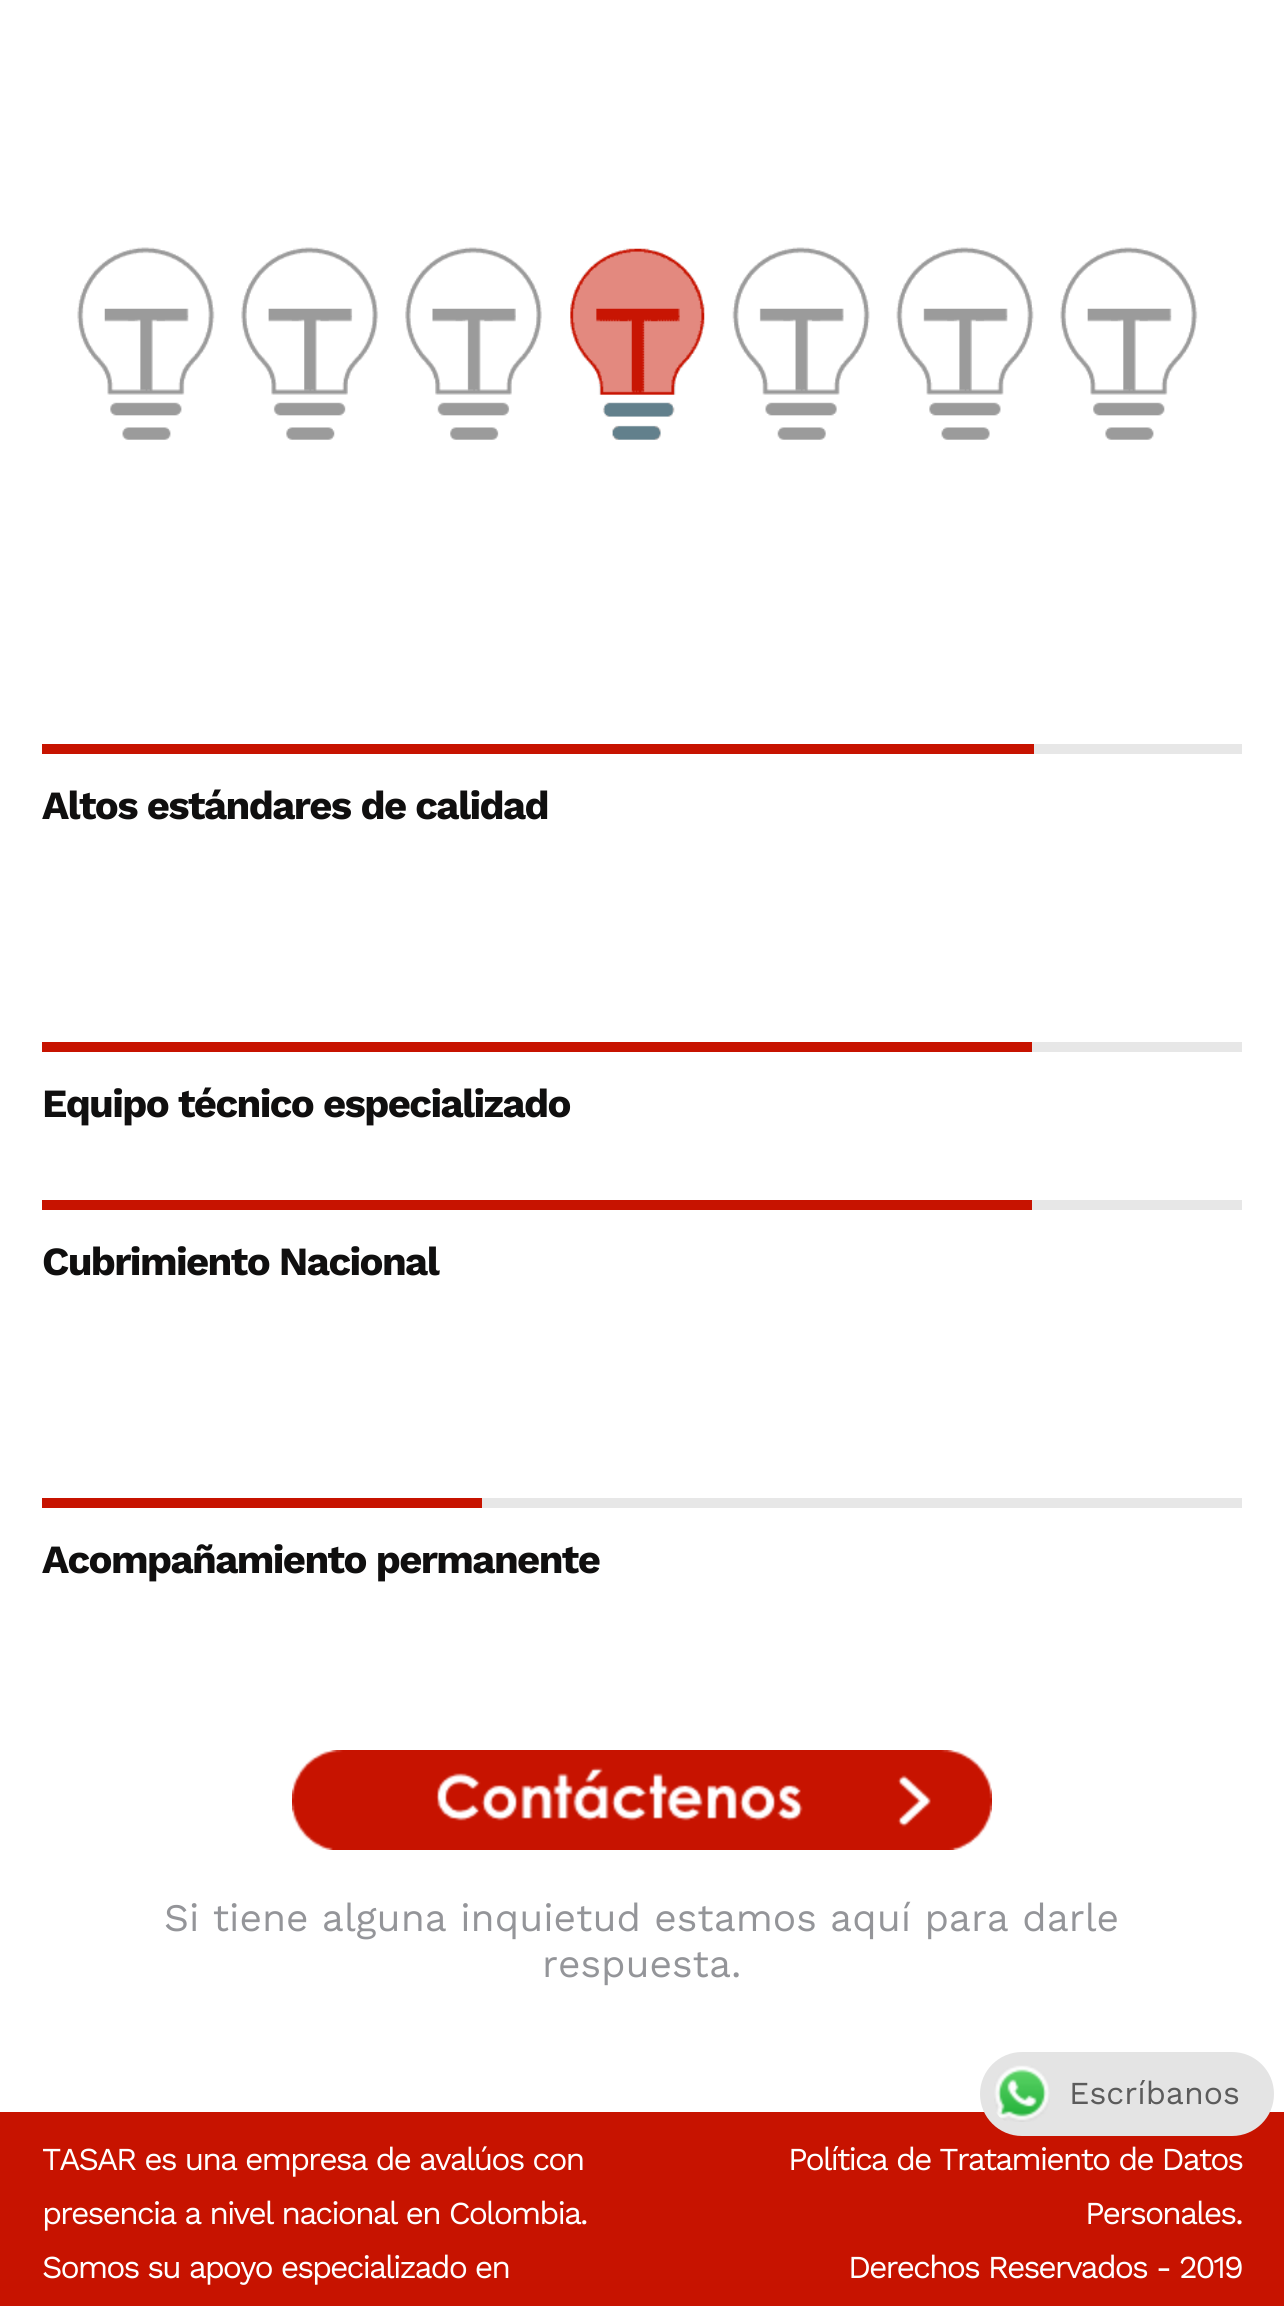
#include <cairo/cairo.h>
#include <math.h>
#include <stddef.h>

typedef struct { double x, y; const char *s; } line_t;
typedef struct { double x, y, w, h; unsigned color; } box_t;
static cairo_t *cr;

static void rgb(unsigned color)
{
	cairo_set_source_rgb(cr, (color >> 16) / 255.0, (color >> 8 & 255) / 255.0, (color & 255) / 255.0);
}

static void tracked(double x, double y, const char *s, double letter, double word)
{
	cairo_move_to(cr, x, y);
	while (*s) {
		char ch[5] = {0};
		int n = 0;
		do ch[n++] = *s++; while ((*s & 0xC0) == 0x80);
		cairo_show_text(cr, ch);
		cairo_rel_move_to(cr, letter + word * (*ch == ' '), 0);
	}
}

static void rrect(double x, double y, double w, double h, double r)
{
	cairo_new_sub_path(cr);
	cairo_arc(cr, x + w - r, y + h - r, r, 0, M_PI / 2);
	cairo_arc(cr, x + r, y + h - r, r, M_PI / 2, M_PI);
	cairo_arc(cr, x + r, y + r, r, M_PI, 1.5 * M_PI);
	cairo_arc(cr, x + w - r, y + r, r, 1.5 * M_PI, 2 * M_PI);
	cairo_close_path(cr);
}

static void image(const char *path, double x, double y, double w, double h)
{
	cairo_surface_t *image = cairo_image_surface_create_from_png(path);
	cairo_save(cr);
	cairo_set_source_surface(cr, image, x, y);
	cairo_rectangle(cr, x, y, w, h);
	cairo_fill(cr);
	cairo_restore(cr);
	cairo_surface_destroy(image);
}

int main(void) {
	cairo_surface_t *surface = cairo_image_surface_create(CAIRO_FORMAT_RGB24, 1284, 2306);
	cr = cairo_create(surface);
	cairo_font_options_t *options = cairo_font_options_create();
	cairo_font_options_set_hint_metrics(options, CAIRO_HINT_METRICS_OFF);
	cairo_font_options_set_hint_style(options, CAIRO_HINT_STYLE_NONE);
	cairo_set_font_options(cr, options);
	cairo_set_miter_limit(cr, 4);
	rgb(0xffffff);
	cairo_paint(cr);
	image("img/1.png", 77, 247, 1121, 193);
	{
		static const box_t items[] = {
			{1034, 744, 208, 10, 0xe7e7e7},
			{42, 744, 992, 10, 0xc71300},
			{1032, 1042, 210, 10, 0xe7e7e7},
			{42, 1042, 990, 10, 0xc71300},
			{1032, 1200, 210, 10, 0xe7e7e7},
			{42, 1200, 990, 10, 0xc71300},
			{482, 1498, 760, 10, 0xe7e7e7},
			{42, 1498, 440, 10, 0xc71300},
		};
		for (size_t i = 0; i < sizeof items / sizeof *items; i++) {
			rgb(items[i].color);
			cairo_rectangle(cr, items[i].x, items[i].y, items[i].w, items[i].h);
			cairo_fill(cr);
		}
	}
	image("img/2.png", 292, 1750, 700, 100);
	cairo_rectangle(cr, 0, 2112, 1284, 194);
	cairo_fill(cr);
	rgb(0xe4e4e4);
	rrect(980, 2052, 294, 84, 42);
	cairo_fill(cr);
	image("img/3.png", 994, 2065, 56, 57);
	cairo_select_font_face(cr, "Work Sans", CAIRO_FONT_SLANT_NORMAL, CAIRO_FONT_WEIGHT_BOLD);
	cairo_set_font_size(cr, 40);
	rgb(0x100f0f);
	{
		static const line_t items[] = {
			{42, 819, "Altos estándares de calidad"},
			{42, 1117, "Equipo técnico especializado"},
			{42, 1275, "Cubrimiento Nacional"},
			{42, 1573, "Acompañamiento permanente"},
		};
		for (size_t i = 0; i < sizeof items / sizeof *items; i++) {
			tracked(items[i].x, items[i].y, items[i].s, -1.6, 0);
		}
	}
	cairo_select_font_face(cr, "Work Sans", CAIRO_FONT_SLANT_NORMAL, CAIRO_FONT_WEIGHT_NORMAL);
	cairo_set_font_size(cr, 39);
	rgb(0x949599);
	cairo_move_to(cr, 164, 1931);
	cairo_show_text(cr, "Si tiene alguna inquietud estamos aquí para darle");
	cairo_move_to(cr, 542, 1977);
	cairo_show_text(cr, "respuesta.");
	cairo_set_font_size(cr, 32);
	rgb(0xffffff);
	{
		static const line_t items[] = {
			{42, 2170, "TASAR es una empresa de avalúos con"},
			{42, 2224, "presencia a nivel nacional en Colombia."},
			{42, 2278, "Somos su apoyo especializado en"},
			{788, 2170, "Política de Tratamiento de Datos"},
			{1085, 2224, "Personales."},
			{848, 2278, "Derechos Reservados - 2019"},
		};
		for (size_t i = 0; i < sizeof items / sizeof *items; i++) {
			tracked(items[i].x, items[i].y, items[i].s, -2, 0);
		}
	}
	rgb(0x5b5b5b);
	cairo_move_to(cr, 1069, 2104);
	cairo_show_text(cr, "Escríbanos");
	cairo_surface_write_to_png(surface, "page.png");
	cairo_font_options_destroy(options);
	cairo_destroy(cr);
	cairo_surface_destroy(surface);
	return 0;
}
